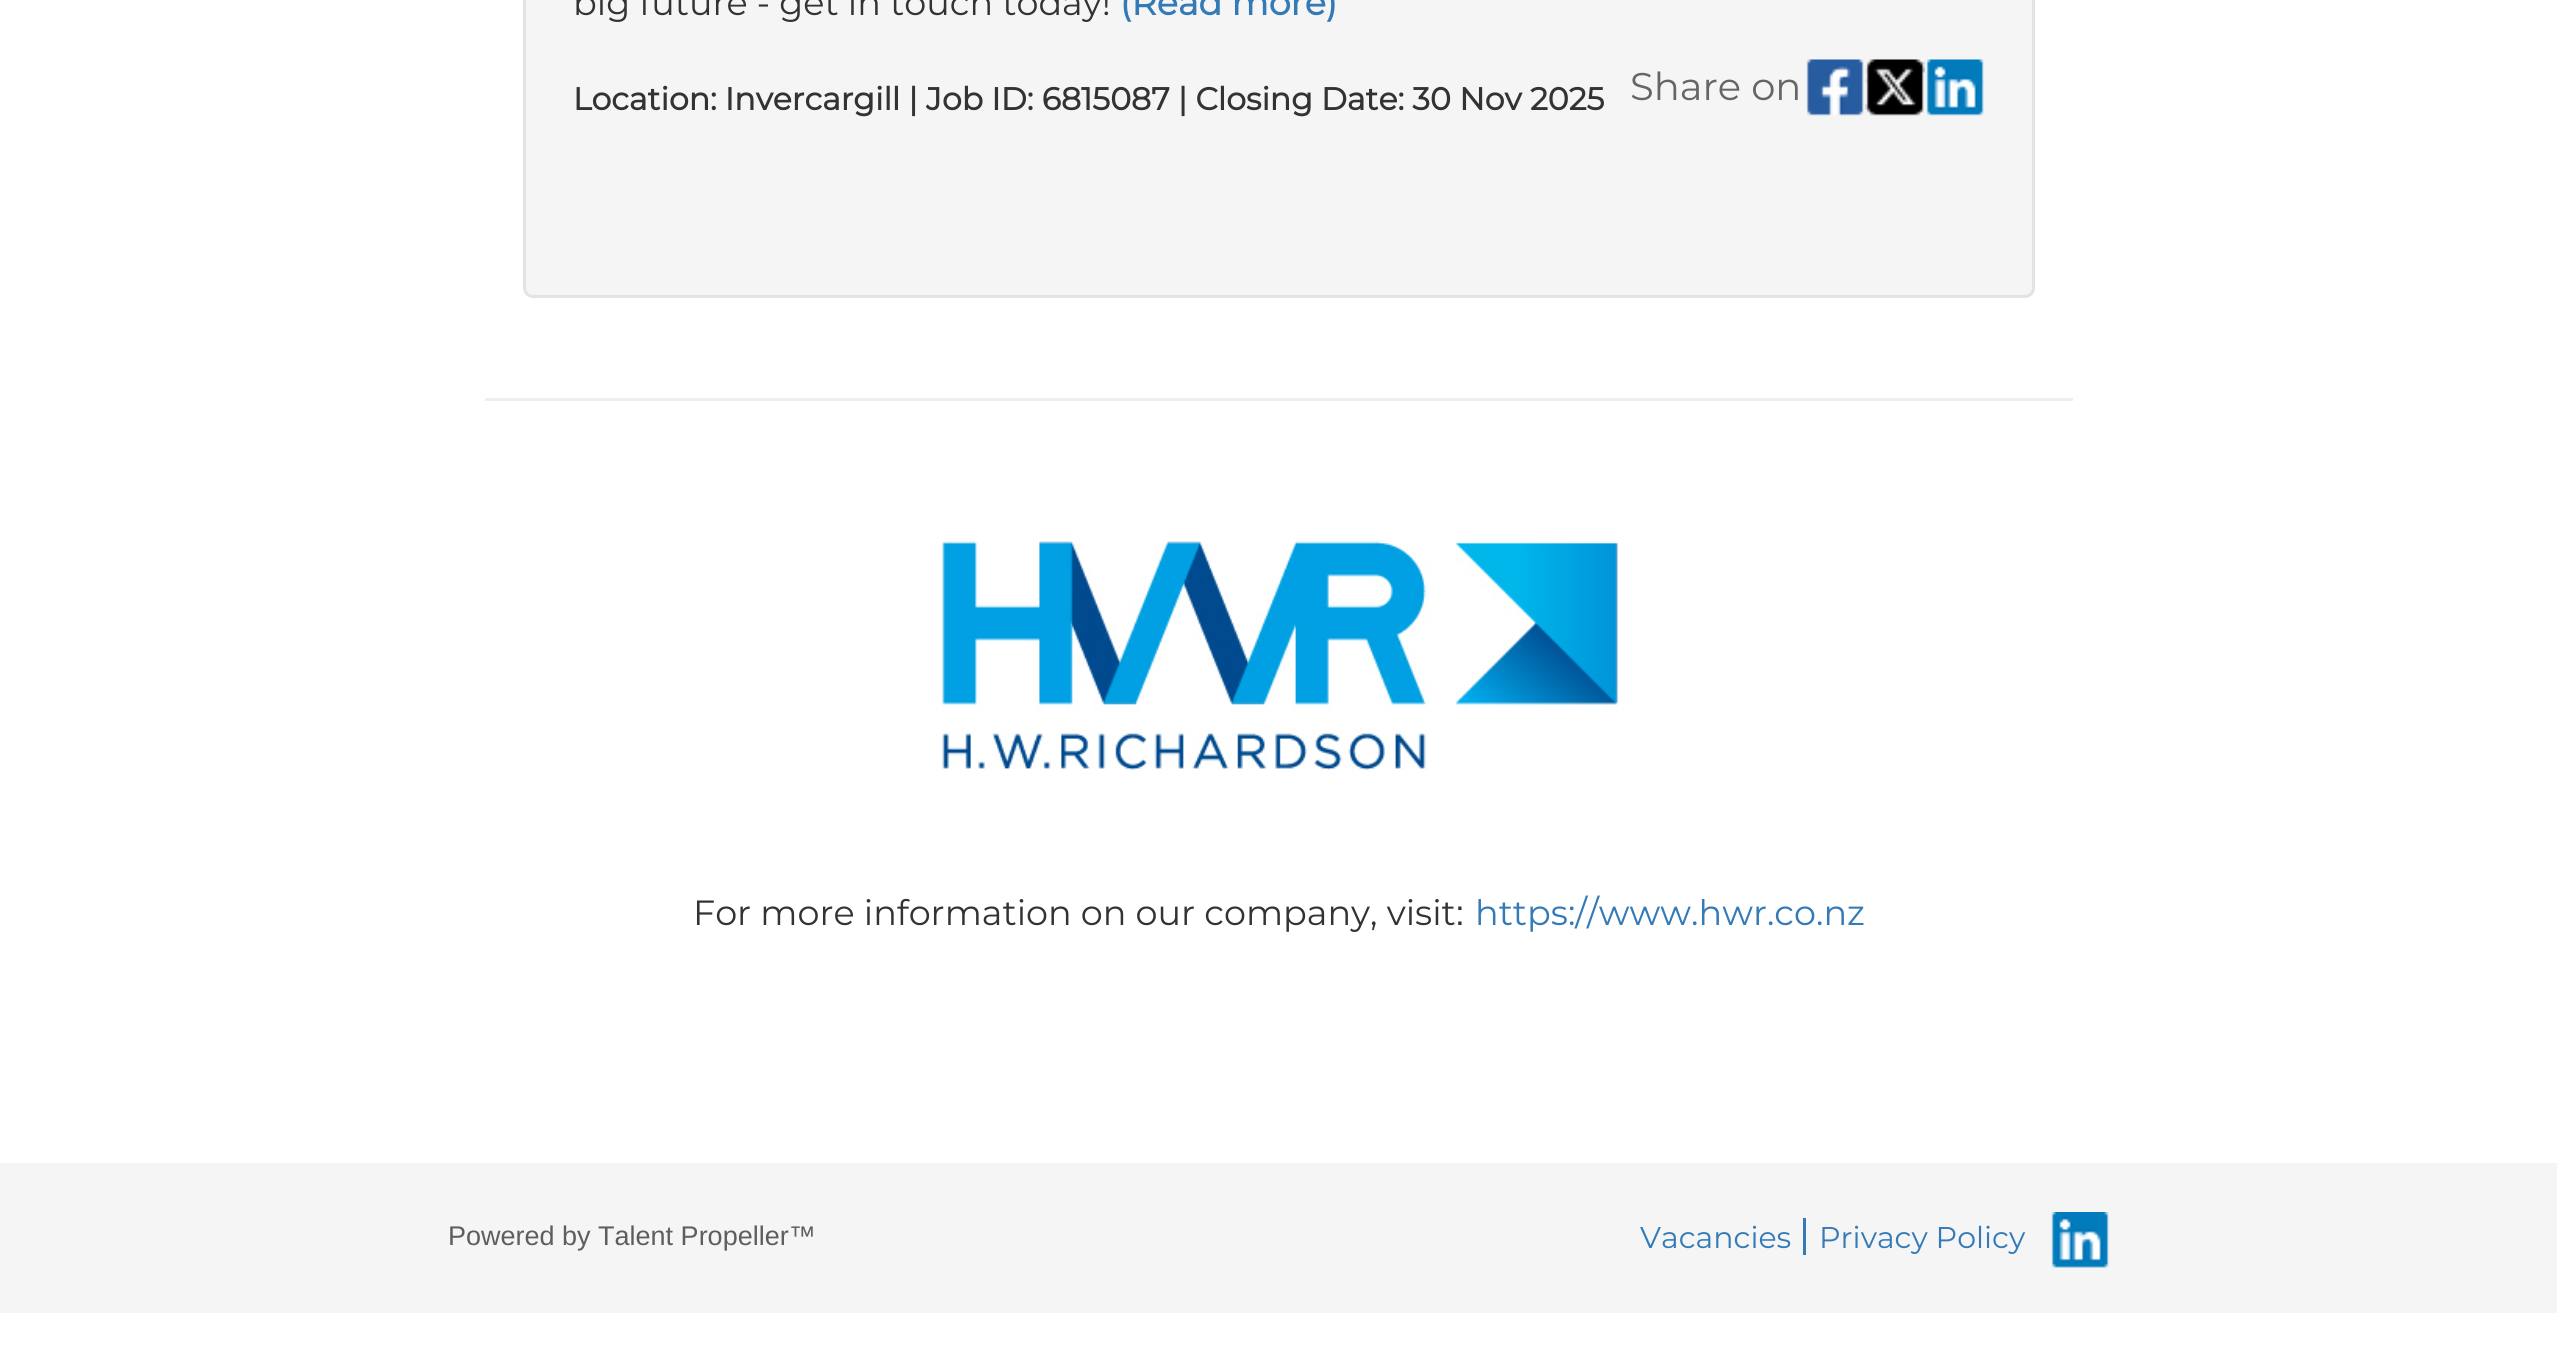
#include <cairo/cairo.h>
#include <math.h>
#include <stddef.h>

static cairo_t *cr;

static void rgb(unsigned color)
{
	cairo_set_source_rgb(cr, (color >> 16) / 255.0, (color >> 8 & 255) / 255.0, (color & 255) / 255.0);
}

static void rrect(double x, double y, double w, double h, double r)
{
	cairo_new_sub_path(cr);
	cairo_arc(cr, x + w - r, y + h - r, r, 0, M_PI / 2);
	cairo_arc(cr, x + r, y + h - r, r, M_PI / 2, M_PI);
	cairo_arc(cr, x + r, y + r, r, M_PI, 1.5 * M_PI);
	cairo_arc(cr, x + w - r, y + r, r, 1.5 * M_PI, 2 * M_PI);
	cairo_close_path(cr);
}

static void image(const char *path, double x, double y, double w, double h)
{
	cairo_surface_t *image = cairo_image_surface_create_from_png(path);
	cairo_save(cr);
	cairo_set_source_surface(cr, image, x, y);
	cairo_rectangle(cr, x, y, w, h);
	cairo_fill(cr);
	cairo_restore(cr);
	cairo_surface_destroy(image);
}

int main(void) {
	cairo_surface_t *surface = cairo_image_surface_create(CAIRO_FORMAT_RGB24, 2557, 1362);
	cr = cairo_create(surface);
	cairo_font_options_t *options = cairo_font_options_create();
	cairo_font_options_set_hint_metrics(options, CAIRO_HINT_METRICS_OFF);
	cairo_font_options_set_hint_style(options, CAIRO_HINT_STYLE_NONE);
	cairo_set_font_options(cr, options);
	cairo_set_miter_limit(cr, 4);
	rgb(0xffffff);
	cairo_paint(cr);
	rgb(0xf5f5f5);
	rrect(524.5, -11.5, 1509, 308, 8.5);
	cairo_fill_preserve(cr);
	rgb(0xe3e3e3);
	cairo_set_line_width(cr, 3);
	cairo_stroke(cr);
	image("img/1.png", 1806, 59, 58, 57);
	image("img/2.png", 1865, 59, 60, 57);
	image("img/3.png", 1926, 59, 58, 57);
	rgb(0xeeeeee);
	cairo_rectangle(cr, 485, 398, 1588, 3);
	cairo_fill(cr);
	image("img/4.png", 942, 541, 676, 229);
	rgb(0xf5f5f5);
	cairo_rectangle(cr, 0, 1163, 2557, 150);
	cairo_fill(cr);
	rgb(0x337ab7);
	cairo_rectangle(cr, 1803, 1218, 3, 37);
	cairo_fill(cr);
	image("img/5.png", 2051, 1212, 58, 56);
	cairo_select_font_face(cr, "Montserrat Thin", CAIRO_FONT_SLANT_NORMAL, CAIRO_FONT_WEIGHT_NORMAL);
	cairo_set_font_size(cr, 35);
	rgb(0x333333);
	cairo_move_to(cr, 573, 15);
	cairo_show_text(cr, "big future - get in touch today!");
	cairo_select_font_face(cr, "Montserrat", CAIRO_FONT_SLANT_NORMAL, CAIRO_FONT_WEIGHT_BOLD);
	rgb(0x337ab7);
	cairo_move_to(cr, 1120, 15);
	cairo_show_text(cr, "(Read more)");
	cairo_set_font_size(cr, 31.5);
	rgb(0x333333);
	cairo_move_to(cr, 573, 110);
	cairo_show_text(cr, "Location: Invercargill | Job ID: 6815087 | Closing Date: 30 Nov 2025");
	cairo_select_font_face(cr, "Montserrat Thin", CAIRO_FONT_SLANT_NORMAL, CAIRO_FONT_WEIGHT_NORMAL);
	cairo_set_font_size(cr, 38.5);
	rgb(0x666666);
	cairo_move_to(cr, 1630, 100);
	cairo_show_text(cr, "Share on");
	cairo_set_font_size(cr, 35);
	rgb(0x333333);
	cairo_move_to(cr, 693, 925);
	cairo_show_text(cr, "For more information on our company, visit");
	cairo_select_font_face(cr, "Liberation Sans", CAIRO_FONT_SLANT_NORMAL, CAIRO_FONT_WEIGHT_NORMAL);
	cairo_move_to(cr, 1455, 925);
	cairo_show_text(cr, ":");
	cairo_select_font_face(cr, "Montserrat Thin", CAIRO_FONT_SLANT_NORMAL, CAIRO_FONT_WEIGHT_NORMAL);
	rgb(0x337ab7);
	cairo_move_to(cr, 1475, 925);
	cairo_show_text(cr, "https://www.hwr.co.nz");
	cairo_select_font_face(cr, "Liberation Sans", CAIRO_FONT_SLANT_NORMAL, CAIRO_FONT_WEIGHT_NORMAL);
	cairo_set_font_size(cr, 27);
	rgb(0x5e5e5e);
	cairo_move_to(cr, 448, 1245);
	cairo_show_text(cr, "Powered by Talent Propeller™");
	cairo_select_font_face(cr, "Montserrat Thin", CAIRO_FONT_SLANT_NORMAL, CAIRO_FONT_WEIGHT_NORMAL);
	cairo_set_font_size(cr, 30);
	rgb(0x337ab7);
	cairo_move_to(cr, 1640, 1248);
	cairo_show_text(cr, "Vacancies");
	cairo_move_to(cr, 1819, 1248);
	cairo_show_text(cr, "Privacy Policy");
	cairo_surface_write_to_png(surface, "page.png");
	cairo_font_options_destroy(options);
	cairo_destroy(cr);
	cairo_surface_destroy(surface);
	return 0;
}
